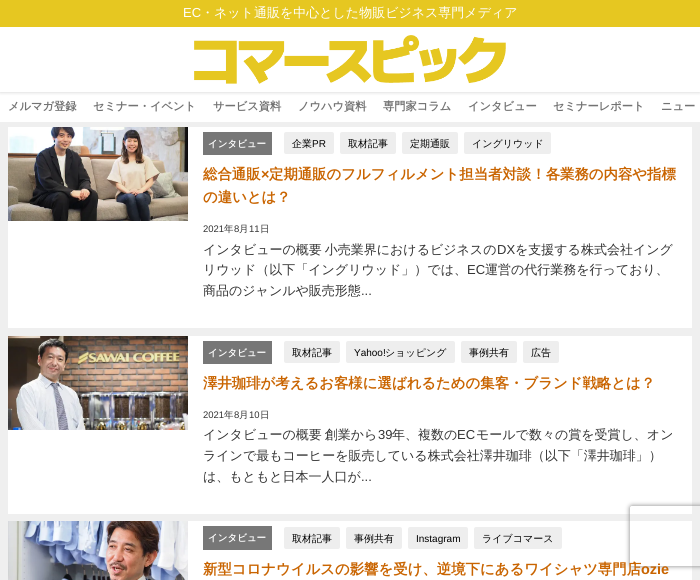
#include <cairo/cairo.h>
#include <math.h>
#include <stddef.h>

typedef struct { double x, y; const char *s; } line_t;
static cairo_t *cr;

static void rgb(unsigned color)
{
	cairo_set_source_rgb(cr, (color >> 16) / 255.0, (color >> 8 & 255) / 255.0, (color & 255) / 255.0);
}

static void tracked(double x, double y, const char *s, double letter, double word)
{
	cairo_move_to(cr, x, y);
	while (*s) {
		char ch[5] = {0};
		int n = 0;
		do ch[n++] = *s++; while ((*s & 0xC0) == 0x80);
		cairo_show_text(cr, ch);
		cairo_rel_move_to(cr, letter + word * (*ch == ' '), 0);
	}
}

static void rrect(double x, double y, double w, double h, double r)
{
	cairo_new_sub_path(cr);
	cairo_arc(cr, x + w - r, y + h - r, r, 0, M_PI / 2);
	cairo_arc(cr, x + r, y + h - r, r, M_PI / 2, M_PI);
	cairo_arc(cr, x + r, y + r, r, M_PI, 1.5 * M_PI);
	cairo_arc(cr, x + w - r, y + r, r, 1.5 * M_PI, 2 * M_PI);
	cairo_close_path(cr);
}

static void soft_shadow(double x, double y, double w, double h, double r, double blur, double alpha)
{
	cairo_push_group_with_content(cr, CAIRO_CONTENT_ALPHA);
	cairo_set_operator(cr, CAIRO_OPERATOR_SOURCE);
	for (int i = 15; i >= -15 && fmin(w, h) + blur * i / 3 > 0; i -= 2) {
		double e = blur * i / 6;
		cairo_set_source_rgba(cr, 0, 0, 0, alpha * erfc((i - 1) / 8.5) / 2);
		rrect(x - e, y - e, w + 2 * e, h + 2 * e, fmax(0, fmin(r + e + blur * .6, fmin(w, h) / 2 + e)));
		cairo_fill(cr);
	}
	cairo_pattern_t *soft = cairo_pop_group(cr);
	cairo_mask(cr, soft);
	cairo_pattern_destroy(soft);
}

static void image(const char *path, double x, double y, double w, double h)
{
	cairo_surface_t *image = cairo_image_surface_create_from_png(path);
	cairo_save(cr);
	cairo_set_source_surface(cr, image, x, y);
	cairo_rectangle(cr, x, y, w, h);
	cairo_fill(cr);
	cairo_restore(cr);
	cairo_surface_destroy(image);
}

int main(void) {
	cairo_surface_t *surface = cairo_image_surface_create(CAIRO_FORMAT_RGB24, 700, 580);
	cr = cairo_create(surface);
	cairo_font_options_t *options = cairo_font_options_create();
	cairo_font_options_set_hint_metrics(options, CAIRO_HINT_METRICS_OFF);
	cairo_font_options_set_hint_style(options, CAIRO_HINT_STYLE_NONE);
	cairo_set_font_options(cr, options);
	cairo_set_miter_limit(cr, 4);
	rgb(0xefefef);
	cairo_paint(cr);
	rgb(0xffffff);
	cairo_rectangle(cr, 0, 92, 700, 30);
	cairo_fill(cr);
	rgb(0x000000);
	soft_shadow(0, 0, 700, 92, 0, 2, 0.2);
	rgb(0xffffff);
	cairo_rectangle(cr, 0, 27, 700, 65);
	cairo_fill(cr);
	rgb(0xe6c721);
	cairo_rectangle(cr, 0, 0, 700, 27);
	cairo_fill(cr);
	image("img/1.png", 194, 35, 312, 49);
	rgb(0xffffff);
	cairo_rectangle(cr, 8, 127, 684, 201);
	cairo_fill(cr);
	image("img/2.png", 8, 127, 180, 94);
	rgb(0x777777);
	cairo_rectangle(cr, 203, 132, 69, 23);
	cairo_fill(cr);
	rgb(0xeeeeee);
	rrect(284, 132, 50, 22, 2);
	cairo_fill(cr);
	rrect(340, 132, 56, 22, 2);
	cairo_fill(cr);
	rrect(402, 132, 56, 22, 2);
	cairo_fill(cr);
	rrect(464, 132, 87, 22, 2);
	cairo_fill(cr);
	rgb(0xffffff);
	cairo_rectangle(cr, 8, 336, 684, 178);
	cairo_fill(cr);
	image("img/3.png", 8, 336, 180, 94);
	rgb(0x777777);
	cairo_rectangle(cr, 203, 341, 69, 23);
	cairo_fill(cr);
	rgb(0xeeeeee);
	rrect(284, 341, 56, 22, 2);
	cairo_fill(cr);
	rrect(346, 341, 109, 22, 2);
	cairo_fill(cr);
	rrect(461, 341, 56, 22, 2);
	cairo_fill(cr);
	rrect(523, 341, 36, 22, 2);
	cairo_fill(cr);
	rgb(0xffffff);
	cairo_rectangle(cr, 188, 521, 504, 59);
	cairo_fill(cr);
	image("img/4.png", 8, 521, 180, 59);
	rgb(0x777777);
	cairo_rectangle(cr, 203, 526, 69, 24);
	cairo_fill(cr);
	rgb(0xeeeeee);
	rrect(284, 527, 56, 22, 2);
	cairo_fill(cr);
	rrect(346, 527, 56, 22, 2);
	cairo_fill(cr);
	rrect(408, 527, 60, 22, 2);
	cairo_fill(cr);
	rrect(474, 527, 88, 22, 2);
	cairo_fill(cr);
	cairo_save(cr);
	cairo_set_fill_rule(cr, CAIRO_FILL_RULE_EVEN_ODD);
	cairo_new_path(cr);
	cairo_move_to(cr, 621, 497);
	cairo_line_to(cr, 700, 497);
	cairo_line_to(cr, 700, 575);
	cairo_line_to(cr, 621, 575);
	cairo_close_path(cr);
	cairo_move_to(cr, 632, 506);
	cairo_line_to(cr, 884, 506);
	cairo_curve_to(cr, 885, 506, 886, 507, 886, 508);
	cairo_line_to(cr, 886, 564);
	cairo_curve_to(cr, 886, 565, 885, 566, 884, 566);
	cairo_line_to(cr, 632, 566);
	cairo_curve_to(cr, 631, 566, 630, 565, 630, 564);
	cairo_line_to(cr, 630, 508);
	cairo_curve_to(cr, 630, 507, 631, 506, 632, 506);
	cairo_close_path(cr);
	cairo_clip(cr);
	rgb(0x808080);
	soft_shadow(630, 506, 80, 60, 2, 2.5, 1);
	cairo_restore(cr);
	cairo_select_font_face(cr, "Liberation Sans", CAIRO_FONT_SLANT_NORMAL, CAIRO_FONT_WEIGHT_NORMAL);
	cairo_set_font_size(cr, 13);
	rgb(0xffffff);
	cairo_move_to(cr, 183, 17);
	cairo_show_text(cr, "EC");
	cairo_select_font_face(cr, "WenQuanYi Zen Hei Medium", CAIRO_FONT_SLANT_NORMAL, CAIRO_FONT_WEIGHT_NORMAL);
	cairo_move_to(cr, 201, 17);
	cairo_show_text(cr, "・ネット通販を中心とした物販ビジネス専門メディア");
	cairo_select_font_face(cr, "WenQuanYi Zen Hei", CAIRO_FONT_SLANT_NORMAL, CAIRO_FONT_WEIGHT_BOLD);
	cairo_set_font_size(cr, 11.25);
	rgb(0x737373);
	{
		static const line_t items[] = {
			{8, 110, "メルマガ登録"},
			{93, 110, "セミナー・イベント"},
			{213, 110, "サービス資料"},
			{298, 110, "ノウハウ資料"},
			{383, 110, "専門家コラム"},
			{468, 110, "インタビュー"},
			{553, 110, "セミナーレポート"},
			{661, 110, "ニュー"},
		};
		for (size_t i = 0; i < sizeof items / sizeof *items; i++) {
			cairo_move_to(cr, items[i].x, items[i].y);
			cairo_show_text(cr, items[i].s);
		}
	}
	cairo_set_font_size(cr, 9.5);
	rgb(0xffffff);
	cairo_move_to(cr, 208, 147);
	cairo_show_text(cr, "インタビュー");
	cairo_select_font_face(cr, "WenQuanYi Zen Hei Medium", CAIRO_FONT_SLANT_NORMAL, CAIRO_FONT_WEIGHT_NORMAL);
	cairo_set_font_size(cr, 10);
	rgb(0x000000);
	cairo_move_to(cr, 292, 147);
	cairo_show_text(cr, "企業");
	cairo_select_font_face(cr, "Liberation Sans", CAIRO_FONT_SLANT_NORMAL, CAIRO_FONT_WEIGHT_NORMAL);
	cairo_move_to(cr, 312, 147);
	cairo_show_text(cr, "PR");
	cairo_select_font_face(cr, "WenQuanYi Zen Hei Medium", CAIRO_FONT_SLANT_NORMAL, CAIRO_FONT_WEIGHT_NORMAL);
	{
		static const line_t items[] = {
			{348, 147, "取材記事"},
			{410, 147, "定期通販"},
			{472, 147, "イングリウッド"},
		};
		for (size_t i = 0; i < sizeof items / sizeof *items; i++) {
			cairo_move_to(cr, items[i].x, items[i].y);
			cairo_show_text(cr, items[i].s);
		}
	}
	cairo_select_font_face(cr, "WenQuanYi Zen Hei", CAIRO_FONT_SLANT_NORMAL, CAIRO_FONT_WEIGHT_BOLD);
	cairo_set_font_size(cr, 14.4);
	rgb(0xc96400);
	cairo_move_to(cr, 203, 179);
	cairo_show_text(cr, "総合通販");
	cairo_select_font_face(cr, "Liberation Sans", CAIRO_FONT_SLANT_NORMAL, CAIRO_FONT_WEIGHT_BOLD);
	cairo_move_to(cr, 261, 179);
	cairo_show_text(cr, "×");
	cairo_select_font_face(cr, "WenQuanYi Zen Hei", CAIRO_FONT_SLANT_NORMAL, CAIRO_FONT_WEIGHT_BOLD);
	cairo_move_to(cr, 269, 179);
	cairo_show_text(cr, "定期通販のフルフィルメント担当者対談！各業務の内容や指標");
	cairo_move_to(cr, 203, 202);
	cairo_show_text(cr, "の違いとは？");
	cairo_select_font_face(cr, "Liberation Sans", CAIRO_FONT_SLANT_NORMAL, CAIRO_FONT_WEIGHT_NORMAL);
	cairo_set_font_size(cr, 9.5);
	rgb(0x333333);
	cairo_move_to(cr, 203, 232);
	cairo_show_text(cr, "2021");
	cairo_select_font_face(cr, "WenQuanYi Zen Hei Medium", CAIRO_FONT_SLANT_NORMAL, CAIRO_FONT_WEIGHT_NORMAL);
	cairo_move_to(cr, 224, 232);
	cairo_show_text(cr, "年");
	cairo_select_font_face(cr, "Liberation Sans", CAIRO_FONT_SLANT_NORMAL, CAIRO_FONT_WEIGHT_NORMAL);
	cairo_move_to(cr, 234, 232);
	cairo_show_text(cr, "8");
	cairo_select_font_face(cr, "WenQuanYi Zen Hei Medium", CAIRO_FONT_SLANT_NORMAL, CAIRO_FONT_WEIGHT_NORMAL);
	cairo_move_to(cr, 239, 232);
	cairo_show_text(cr, "月");
	cairo_select_font_face(cr, "Liberation Sans", CAIRO_FONT_SLANT_NORMAL, CAIRO_FONT_WEIGHT_NORMAL);
	cairo_move_to(cr, 249, 232);
	cairo_show_text(cr, "11");
	cairo_select_font_face(cr, "WenQuanYi Zen Hei Medium", CAIRO_FONT_SLANT_NORMAL, CAIRO_FONT_WEIGHT_NORMAL);
	cairo_move_to(cr, 260, 232);
	cairo_show_text(cr, "日");
	cairo_set_font_size(cr, 13);
	tracked(203, 254, "インタビューの概要 小売業界におけるビジネスの", 0, -1);
	cairo_select_font_face(cr, "Liberation Sans", CAIRO_FONT_SLANT_NORMAL, CAIRO_FONT_WEIGHT_NORMAL);
	cairo_move_to(cr, 497, 254);
	cairo_show_text(cr, "DX");
	cairo_select_font_face(cr, "WenQuanYi Zen Hei Medium", CAIRO_FONT_SLANT_NORMAL, CAIRO_FONT_WEIGHT_NORMAL);
	cairo_move_to(cr, 515, 254);
	cairo_show_text(cr, "を支援する株式会社イング");
	cairo_move_to(cr, 203, 274);
	cairo_show_text(cr, "リウッド（以下「イングリウッド」）では、");
	cairo_select_font_face(cr, "Liberation Sans", CAIRO_FONT_SLANT_NORMAL, CAIRO_FONT_WEIGHT_NORMAL);
	cairo_move_to(cr, 467, 274);
	cairo_show_text(cr, "EC");
	cairo_select_font_face(cr, "WenQuanYi Zen Hei Medium", CAIRO_FONT_SLANT_NORMAL, CAIRO_FONT_WEIGHT_NORMAL);
	cairo_move_to(cr, 485, 274);
	cairo_show_text(cr, "運営の代行業務を行っており、");
	cairo_move_to(cr, 203, 295);
	cairo_show_text(cr, "商品のジャンルや販売形態");
	cairo_select_font_face(cr, "Liberation Sans", CAIRO_FONT_SLANT_NORMAL, CAIRO_FONT_WEIGHT_NORMAL);
	cairo_move_to(cr, 361, 295);
	cairo_show_text(cr, "...");
	cairo_select_font_face(cr, "WenQuanYi Zen Hei", CAIRO_FONT_SLANT_NORMAL, CAIRO_FONT_WEIGHT_BOLD);
	cairo_set_font_size(cr, 9.5);
	rgb(0xffffff);
	cairo_move_to(cr, 208, 356);
	cairo_show_text(cr, "インタビュー");
	cairo_select_font_face(cr, "WenQuanYi Zen Hei Medium", CAIRO_FONT_SLANT_NORMAL, CAIRO_FONT_WEIGHT_NORMAL);
	cairo_set_font_size(cr, 10);
	rgb(0x000000);
	cairo_move_to(cr, 292, 356);
	cairo_show_text(cr, "取材記事");
	cairo_select_font_face(cr, "Liberation Sans", CAIRO_FONT_SLANT_NORMAL, CAIRO_FONT_WEIGHT_NORMAL);
	cairo_move_to(cr, 354, 356);
	cairo_show_text(cr, "Yahoo!");
	cairo_select_font_face(cr, "WenQuanYi Zen Hei Medium", CAIRO_FONT_SLANT_NORMAL, CAIRO_FONT_WEIGHT_NORMAL);
	{
		static const line_t items[] = {
			{385, 356, "ショッピング"},
			{469, 356, "事例共有"},
			{531, 356, "広告"},
		};
		for (size_t i = 0; i < sizeof items / sizeof *items; i++) {
			cairo_move_to(cr, items[i].x, items[i].y);
			cairo_show_text(cr, items[i].s);
		}
	}
	cairo_select_font_face(cr, "WenQuanYi Zen Hei", CAIRO_FONT_SLANT_NORMAL, CAIRO_FONT_WEIGHT_BOLD);
	cairo_set_font_size(cr, 14.4);
	rgb(0xc96400);
	cairo_move_to(cr, 203, 388);
	cairo_show_text(cr, "澤井珈琲が考えるお客様に選ばれるための集客・ブランド戦略とは？");
	cairo_select_font_face(cr, "Liberation Sans", CAIRO_FONT_SLANT_NORMAL, CAIRO_FONT_WEIGHT_NORMAL);
	cairo_set_font_size(cr, 9.5);
	rgb(0x333333);
	cairo_move_to(cr, 203, 418);
	cairo_show_text(cr, "2021");
	cairo_select_font_face(cr, "WenQuanYi Zen Hei Medium", CAIRO_FONT_SLANT_NORMAL, CAIRO_FONT_WEIGHT_NORMAL);
	cairo_move_to(cr, 224, 418);
	cairo_show_text(cr, "年");
	cairo_select_font_face(cr, "Liberation Sans", CAIRO_FONT_SLANT_NORMAL, CAIRO_FONT_WEIGHT_NORMAL);
	cairo_move_to(cr, 234, 418);
	cairo_show_text(cr, "8");
	cairo_select_font_face(cr, "WenQuanYi Zen Hei Medium", CAIRO_FONT_SLANT_NORMAL, CAIRO_FONT_WEIGHT_NORMAL);
	cairo_move_to(cr, 239, 418);
	cairo_show_text(cr, "月");
	cairo_select_font_face(cr, "Liberation Sans", CAIRO_FONT_SLANT_NORMAL, CAIRO_FONT_WEIGHT_NORMAL);
	cairo_move_to(cr, 249, 418);
	cairo_show_text(cr, "10");
	cairo_select_font_face(cr, "WenQuanYi Zen Hei Medium", CAIRO_FONT_SLANT_NORMAL, CAIRO_FONT_WEIGHT_NORMAL);
	cairo_move_to(cr, 260, 418);
	cairo_show_text(cr, "日");
	cairo_set_font_size(cr, 13);
	tracked(203, 439, "インタビューの概要 創業から", 0, -1);
	cairo_select_font_face(cr, "Liberation Sans", CAIRO_FONT_SLANT_NORMAL, CAIRO_FONT_WEIGHT_NORMAL);
	cairo_move_to(cr, 378, 439);
	cairo_show_text(cr, "39");
	cairo_select_font_face(cr, "WenQuanYi Zen Hei Medium", CAIRO_FONT_SLANT_NORMAL, CAIRO_FONT_WEIGHT_NORMAL);
	cairo_move_to(cr, 392, 439);
	cairo_show_text(cr, "年、複数の");
	cairo_select_font_face(cr, "Liberation Sans", CAIRO_FONT_SLANT_NORMAL, CAIRO_FONT_WEIGHT_NORMAL);
	cairo_move_to(cr, 457, 439);
	cairo_show_text(cr, "EC");
	cairo_select_font_face(cr, "WenQuanYi Zen Hei Medium", CAIRO_FONT_SLANT_NORMAL, CAIRO_FONT_WEIGHT_NORMAL);
	{
		static const line_t items[] = {
			{476, 439, "モールで数々の賞を受賞し、オン"},
			{203, 460, "ラインで最もコーヒーを販売している株式会社澤井珈琲（以下「澤井珈琲」）"},
			{203, 481, "は、もともと日本一人口が"},
		};
		for (size_t i = 0; i < sizeof items / sizeof *items; i++) {
			cairo_move_to(cr, items[i].x, items[i].y);
			cairo_show_text(cr, items[i].s);
		}
	}
	cairo_select_font_face(cr, "Liberation Sans", CAIRO_FONT_SLANT_NORMAL, CAIRO_FONT_WEIGHT_NORMAL);
	cairo_move_to(cr, 361, 481);
	cairo_show_text(cr, "...");
	cairo_select_font_face(cr, "WenQuanYi Zen Hei", CAIRO_FONT_SLANT_NORMAL, CAIRO_FONT_WEIGHT_BOLD);
	cairo_set_font_size(cr, 9.5);
	rgb(0xffffff);
	cairo_move_to(cr, 208, 541);
	cairo_show_text(cr, "インタビュー");
	cairo_select_font_face(cr, "WenQuanYi Zen Hei Medium", CAIRO_FONT_SLANT_NORMAL, CAIRO_FONT_WEIGHT_NORMAL);
	cairo_set_font_size(cr, 10);
	rgb(0x000000);
	cairo_move_to(cr, 292, 542);
	cairo_show_text(cr, "取材記事");
	cairo_move_to(cr, 354, 542);
	cairo_show_text(cr, "事例共有");
	cairo_select_font_face(cr, "Liberation Sans", CAIRO_FONT_SLANT_NORMAL, CAIRO_FONT_WEIGHT_NORMAL);
	cairo_move_to(cr, 416, 542);
	cairo_show_text(cr, "Instagram");
	cairo_select_font_face(cr, "WenQuanYi Zen Hei Medium", CAIRO_FONT_SLANT_NORMAL, CAIRO_FONT_WEIGHT_NORMAL);
	cairo_move_to(cr, 482, 542);
	cairo_show_text(cr, "ライブコマース");
	cairo_select_font_face(cr, "WenQuanYi Zen Hei", CAIRO_FONT_SLANT_NORMAL, CAIRO_FONT_WEIGHT_BOLD);
	cairo_set_font_size(cr, 14.4);
	rgb(0xc96400);
	cairo_move_to(cr, 203, 574);
	cairo_show_text(cr, "新型コロナウイルスの影響を受け、逆境下にあるワイシャツ専門店");
	cairo_select_font_face(cr, "Liberation Sans", CAIRO_FONT_SLANT_NORMAL, CAIRO_FONT_WEIGHT_BOLD);
	cairo_move_to(cr, 641, 574);
	cairo_show_text(cr, "ozie");
	cairo_surface_write_to_png(surface, "page.png");
	cairo_font_options_destroy(options);
	cairo_destroy(cr);
	cairo_surface_destroy(surface);
	return 0;
}
